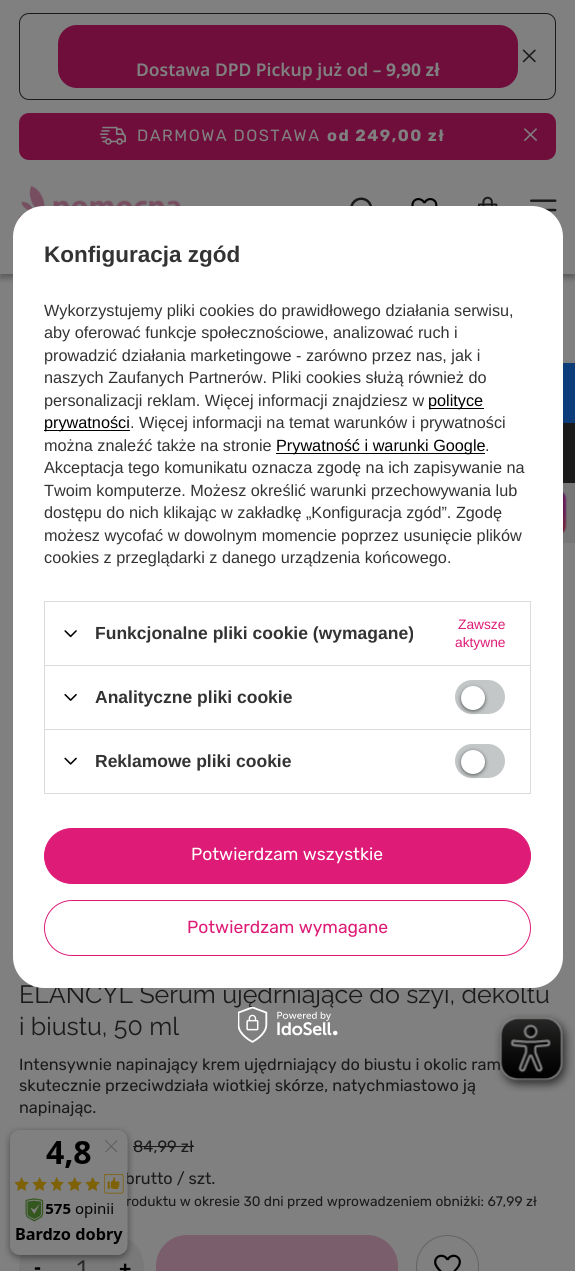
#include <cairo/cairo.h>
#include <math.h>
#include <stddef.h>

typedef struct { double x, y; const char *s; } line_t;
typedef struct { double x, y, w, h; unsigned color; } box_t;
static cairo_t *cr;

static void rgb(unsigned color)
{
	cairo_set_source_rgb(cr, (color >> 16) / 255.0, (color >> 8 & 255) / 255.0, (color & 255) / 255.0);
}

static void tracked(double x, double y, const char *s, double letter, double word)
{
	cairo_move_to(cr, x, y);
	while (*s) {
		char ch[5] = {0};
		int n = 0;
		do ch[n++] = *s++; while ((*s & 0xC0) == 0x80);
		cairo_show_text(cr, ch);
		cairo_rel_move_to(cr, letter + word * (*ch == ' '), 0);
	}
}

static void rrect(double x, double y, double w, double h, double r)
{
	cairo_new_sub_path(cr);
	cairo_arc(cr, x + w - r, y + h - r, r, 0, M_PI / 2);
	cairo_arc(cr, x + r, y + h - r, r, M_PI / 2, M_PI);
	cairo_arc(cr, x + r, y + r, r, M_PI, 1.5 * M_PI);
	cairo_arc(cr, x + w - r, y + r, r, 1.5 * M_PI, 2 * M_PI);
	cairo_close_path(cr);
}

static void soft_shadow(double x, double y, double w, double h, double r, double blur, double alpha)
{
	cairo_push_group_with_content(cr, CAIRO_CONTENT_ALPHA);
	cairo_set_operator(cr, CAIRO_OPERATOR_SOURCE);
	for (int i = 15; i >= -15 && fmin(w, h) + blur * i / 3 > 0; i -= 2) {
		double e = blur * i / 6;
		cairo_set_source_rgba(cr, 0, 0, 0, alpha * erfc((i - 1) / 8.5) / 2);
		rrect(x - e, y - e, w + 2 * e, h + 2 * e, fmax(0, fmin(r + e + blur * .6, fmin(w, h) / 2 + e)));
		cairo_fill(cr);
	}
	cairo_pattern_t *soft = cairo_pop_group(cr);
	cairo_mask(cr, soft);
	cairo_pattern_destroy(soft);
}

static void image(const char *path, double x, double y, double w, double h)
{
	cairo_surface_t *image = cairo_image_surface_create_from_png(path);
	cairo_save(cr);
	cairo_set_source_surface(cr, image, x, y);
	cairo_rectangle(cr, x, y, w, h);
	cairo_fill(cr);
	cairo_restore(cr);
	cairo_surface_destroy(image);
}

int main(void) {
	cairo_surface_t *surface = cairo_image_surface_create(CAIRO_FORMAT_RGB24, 575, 1271);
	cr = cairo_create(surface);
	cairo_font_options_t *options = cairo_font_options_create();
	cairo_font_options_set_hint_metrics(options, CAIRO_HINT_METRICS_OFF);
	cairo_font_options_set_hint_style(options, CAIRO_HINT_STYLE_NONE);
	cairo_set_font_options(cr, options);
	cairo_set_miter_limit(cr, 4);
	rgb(0x808080);
	cairo_paint(cr);
	cairo_save(cr);
	cairo_set_fill_rule(cr, CAIRO_FILL_RULE_EVEN_ODD);
	cairo_new_path(cr);
	cairo_move_to(cr, 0, 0);
	cairo_line_to(cr, 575, 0);
	cairo_line_to(cr, 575, 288);
	cairo_line_to(cr, 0, 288);
	cairo_close_path(cr);
	cairo_move_to(cr, 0, 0);
	cairo_line_to(cr, 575, 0);
	cairo_line_to(cr, 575, 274);
	cairo_line_to(cr, 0, 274);
	cairo_close_path(cr);
	cairo_clip(cr);
	rgb(0x000000);
	soft_shadow(0, 4, 575, 274, 0, 3, 0.3);
	cairo_restore(cr);
	cairo_set_source_rgba(cr, 0.502, 0.502, 0.502, 0.8);
	cairo_rectangle(cr, 0, 273, 575, 1);
	cairo_fill(cr);
	rrect(19.5, 13.5, 536, 86, 9.5);
	rgb(0x1a1a1a);
	cairo_set_line_width(cr, 1);
	cairo_stroke(cr);
	image("img/1.png", 522, 49, 14, 14);
	rgb(0x6f0e3b);
	rrect(58, 25, 460, 63, 19);
	cairo_fill(cr);
	rrect(19, 113, 537, 47, 10);
	cairo_fill(cr);
	image("img/2.png", 99, 126, 27, 19);
	image("img/3.png", 523, 128, 15, 14);
	image("img/4.png", 18, 185, 163, 34);
	image("img/5.png", 350, 197, 22, 9);
	image("img/6.png", 411, 198, 27, 8);
	image("img/7.png", 477, 196, 21, 10);
	image("img/8.png", 530, 199, 27, 20);
	rgb(0x1a1a1a);
	cairo_rectangle(cr, 133, 1146, 61, 1);
	cairo_fill(cr);
	rgb(0x797979);
	rrect(19, 1235, 125, 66, 31);
	cairo_fill(cr);
	rgb(0x7b5e6b);
	rrect(156.5, 1235.5, 241, 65, 30.5);
	cairo_fill_preserve(cr);
	cairo_stroke(cr);
	cairo_arc(cr, 447.5, 1266.5, 31, 0, 2 * M_PI);
	rgb(0x626464);
	cairo_stroke(cr);
	image("img/9.png", 434, 1254, 27, 17);
	{
		static const box_t items[] = {
			{563, 363, 12, 60, 0x0d3c7a},
			{563, 423, 12, 60, 0x1a1a1a},
			{563, 483, 12, 60, 0x777777},
		};
		for (size_t i = 0; i < sizeof items / sizeof *items; i++) {
			rgb(items[i].color);
			cairo_rectangle(cr, items[i].x, items[i].y, items[i].w, items[i].h);
			cairo_fill(cr);
		}
	}
	image("img/14.png", 563, 491, 4, 43);
	cairo_select_font_face(cr, "Noto Sans SemiBold", CAIRO_FONT_SLANT_NORMAL, CAIRO_FONT_WEIGHT_NORMAL);
	cairo_set_font_size(cr, 17.5);
	rgb(0x808080);
	cairo_move_to(cr, 136, 76);
	cairo_show_text(cr, "Dostawa DPD Pickup już od –");
	cairo_select_font_face(cr, "Noto Sans", CAIRO_FONT_SLANT_NORMAL, CAIRO_FONT_WEIGHT_BOLD);
	cairo_move_to(cr, 386, 76);
	cairo_show_text(cr, "9,90 zł");
	cairo_select_font_face(cr, "Rubik", CAIRO_FONT_SLANT_NORMAL, CAIRO_FONT_WEIGHT_NORMAL);
	cairo_set_font_size(cr, 16.25);
	tracked(137, 141, "DARMOWA DOSTAWA", 1.5, 0);
	cairo_select_font_face(cr, "Rubik", CAIRO_FONT_SLANT_NORMAL, CAIRO_FONT_WEIGHT_BOLD);
	tracked(327, 141, "od 249,00 zł", 1.5, 0);
	cairo_select_font_face(cr, "Raleway", CAIRO_FONT_SLANT_NORMAL, CAIRO_FONT_WEIGHT_NORMAL);
	cairo_set_font_size(cr, 25);
	rgb(0x1a1a1a);
	cairo_move_to(cr, 19, 1003);
	cairo_show_text(cr, "ELANCYL Serum ujędrniające do szyi, dekoltu");
	cairo_move_to(cr, 19, 1035);
	cairo_show_text(cr, "i biustu, 50 ml");
	cairo_select_font_face(cr, "Rubik", CAIRO_FONT_SLANT_NORMAL, CAIRO_FONT_WEIGHT_NORMAL);
	cairo_set_font_size(cr, 16.25);
	{
		static const line_t items[] = {
			{19, 1070, "Intensywnie napinający krem ujędrniający do biustu i okolic ram"},
			{19, 1091, "skutecznie przeciwdziała wiotkiej skórze, natychmiastowo ją"},
			{19, 1113, "napinając."},
			{133, 1152, "84,99 zł"},
			{125, 1184, "brutto / szt."},
		};
		for (size_t i = 0; i < sizeof items / sizeof *items; i++) {
			cairo_move_to(cr, items[i].x, items[i].y);
			cairo_show_text(cr, items[i].s);
		}
	}
	cairo_set_font_size(cr, 13.75);
	cairo_move_to(cr, 126, 1206);
	cairo_show_text(cr, "roduktu w okresie 30 dni przed wprowadzeniem obniżki: 67,99 zł");
	cairo_select_font_face(cr, "Liberation Sans", CAIRO_FONT_SLANT_NORMAL, CAIRO_FONT_WEIGHT_BOLD);
	cairo_set_font_size(cr, 21);
	rgb(0x000000);
	cairo_move_to(cr, 34, 1274);
	cairo_show_text(cr, "-");
	cairo_select_font_face(cr, "Rubik", CAIRO_FONT_SLANT_NORMAL, CAIRO_FONT_WEIGHT_NORMAL);
	rgb(0x2a2a2a);
	cairo_move_to(cr, 77, 1275);
	cairo_show_text(cr, "1");
	cairo_select_font_face(cr, "Liberation Sans", CAIRO_FONT_SLANT_NORMAL, CAIRO_FONT_WEIGHT_BOLD);
	rgb(0x000000);
	cairo_move_to(cr, 119, 1276);
	cairo_show_text(cr, "+");
	rgb(0xffffff);
	rrect(13, 206, 550, 782, 31);
	cairo_fill(cr);
	cairo_set_font_size(cr, 22.5);
	rgb(0x333333);
	cairo_move_to(cr, 44, 262);
	cairo_show_text(cr, "Konfiguracja zgód");
	cairo_select_font_face(cr, "Liberation Sans", CAIRO_FONT_SLANT_NORMAL, CAIRO_FONT_WEIGHT_NORMAL);
	cairo_set_font_size(cr, 16.25);
	{
		static const line_t items[] = {
			{44, 316, "Wykorzystujemy pliki cookies do prawidłowego działania serwisu,"},
			{44, 338, "aby oferować funkcje społecznościowe, analizować ruch i"},
			{44, 361, "prowadzić działania marketingowe - zarówno przez nas, jak i"},
			{44, 383, "naszych Zaufanych Partnerów. Pliki cookies służą również do"},
			{44, 406, "personalizacji reklam. Więcej informacji znajdziesz w"},
		};
		for (size_t i = 0; i < sizeof items / sizeof *items; i++) {
			cairo_move_to(cr, items[i].x, items[i].y);
			cairo_show_text(cr, items[i].s);
		}
	}
	rgb(0x000000);
	cairo_rectangle(cr, 429, 408, 55, 1);
	cairo_fill(cr);
	cairo_move_to(cr, 428, 406);
	cairo_show_text(cr, "polityce");
	cairo_rectangle(cr, 44, 430, 86, 1);
	cairo_fill(cr);
	cairo_move_to(cr, 44, 428);
	cairo_show_text(cr, "prywatności");
	rgb(0x333333);
	cairo_move_to(cr, 130, 428);
	cairo_show_text(cr, ". Więcej informacji na temat warunków i prywatności");
	cairo_move_to(cr, 44, 451);
	cairo_show_text(cr, "można znaleźć także na stronie");
	rgb(0x000000);
	cairo_rectangle(cr, 276, 453, 209, 1);
	cairo_fill(cr);
	cairo_move_to(cr, 276, 451);
	cairo_show_text(cr, "Prywatność i warunki Google");
	rgb(0x333333);
	{
		static const line_t items[] = {
			{485, 451, "."},
			{44, 473, "Akceptacja tego komunikatu oznacza zgodę na ich zapisywanie na"},
			{44, 496, "Twoim komputerze. Możesz określić warunki przechowywania lub"},
			{44, 518, "dostępu do nich klikając w zakładkę „Konfiguracja zgód”. Zgodę"},
			{44, 541, "możesz wycofać w dowolnym momencie poprzez usunięcie plików"},
			{44, 563, "cookies z przeglądarki z danego urządzenia końcowego."},
		};
		for (size_t i = 0; i < sizeof items / sizeof *items; i++) {
			cairo_move_to(cr, items[i].x, items[i].y);
			cairo_show_text(cr, items[i].s);
		}
	}
	{
		static const box_t items[] = {
			{44, 601, 487, 1, 0xdbdbdb},
			{530, 601, 1, 64, 0xdbdbdb},
			{44, 601, 1, 64, 0xdbdbdb},
		};
		for (size_t i = 0; i < sizeof items / sizeof *items; i++) {
			rgb(items[i].color);
			cairo_rectangle(cr, items[i].x, items[i].y, items[i].w, items[i].h);
			cairo_fill(cr);
		}
	}
	image("img/10.png", 64, 630, 13, 8);
	cairo_select_font_face(cr, "Liberation Sans", CAIRO_FONT_SLANT_NORMAL, CAIRO_FONT_WEIGHT_BOLD);
	cairo_set_font_size(cr, 17.5);
	rgb(0x333333);
	cairo_move_to(cr, 95, 639);
	cairo_show_text(cr, "Funkcjonalne pliki cookie (wymagane)");
	cairo_select_font_face(cr, "Liberation Sans", CAIRO_FONT_SLANT_NORMAL, CAIRO_FONT_WEIGHT_NORMAL);
	cairo_set_font_size(cr, 13.75);
	rgb(0xde1b76);
	cairo_move_to(cr, 458, 629);
	cairo_show_text(cr, "Zawsze");
	cairo_move_to(cr, 455, 647);
	cairo_show_text(cr, "aktywne");
	{
		static const box_t items[] = {
			{44, 665, 487, 1, 0xdbdbdb},
			{530, 665, 1, 64, 0xdbdbdb},
			{44, 665, 1, 64, 0xdbdbdb},
		};
		for (size_t i = 0; i < sizeof items / sizeof *items; i++) {
			rgb(items[i].color);
			cairo_rectangle(cr, items[i].x, items[i].y, items[i].w, items[i].h);
			cairo_fill(cr);
		}
	}
	image("img/11.png", 64, 693, 13, 8);
	cairo_select_font_face(cr, "Liberation Sans", CAIRO_FONT_SLANT_NORMAL, CAIRO_FONT_WEIGHT_BOLD);
	cairo_set_font_size(cr, 17.5);
	rgb(0x333333);
	cairo_move_to(cr, 95, 703);
	cairo_show_text(cr, "Analityczne pliki cookie");
	rgb(0xc4c7c8);
	rrect(455, 680, 50, 34, 17);
	cairo_fill(cr);
	rgb(0x000000);
	soft_shadow(461, 688, 24, 23, 11.5, 2, 0.56);
	rgb(0xffffff);
	cairo_arc(cr, 473, 698, 12, 0, 2 * M_PI);
	cairo_fill(cr);
	cairo_rectangle(cr, 44.5, 729.5, 486, 64);
	rgb(0xdbdbdb);
	cairo_stroke(cr);
	image("img/12.png", 64, 757, 13, 8);
	rgb(0x333333);
	cairo_move_to(cr, 95, 767);
	cairo_show_text(cr, "Reklamowe pliki cookie");
	rgb(0xc4c7c8);
	rrect(455, 744, 50, 34, 17);
	cairo_fill(cr);
	rgb(0x000000);
	soft_shadow(461, 751, 24, 24, 12, 2, 0.56);
	rgb(0xffffff);
	cairo_arc(cr, 473, 762, 12, 0, 2 * M_PI);
	cairo_fill(cr);
	rgb(0xde1b76);
	rrect(44.5, 828.5, 486, 55, 27.5);
	cairo_fill_preserve(cr);
	cairo_stroke(cr);
	cairo_select_font_face(cr, "Rubik", CAIRO_FONT_SLANT_NORMAL, CAIRO_FONT_WEIGHT_NORMAL);
	rgb(0xffffff);
	cairo_move_to(cr, 191, 860);
	cairo_show_text(cr, "Potwierdzam wszystkie");
	rrect(44.5, 900.5, 486, 55, 27.5);
	rgb(0xde1b76);
	cairo_stroke(cr);
	cairo_move_to(cr, 187, 933);
	cairo_show_text(cr, "Potwierdzam wymagane");
	image("img/13.png", 238, 1007, 100, 36);
	image("img/15.png", 494, 1013, 80, 79);
	image("img/16.png", 4, 1126, 130, 138);
	cairo_surface_write_to_png(surface, "page.png");
	cairo_font_options_destroy(options);
	cairo_destroy(cr);
	cairo_surface_destroy(surface);
	return 0;
}
